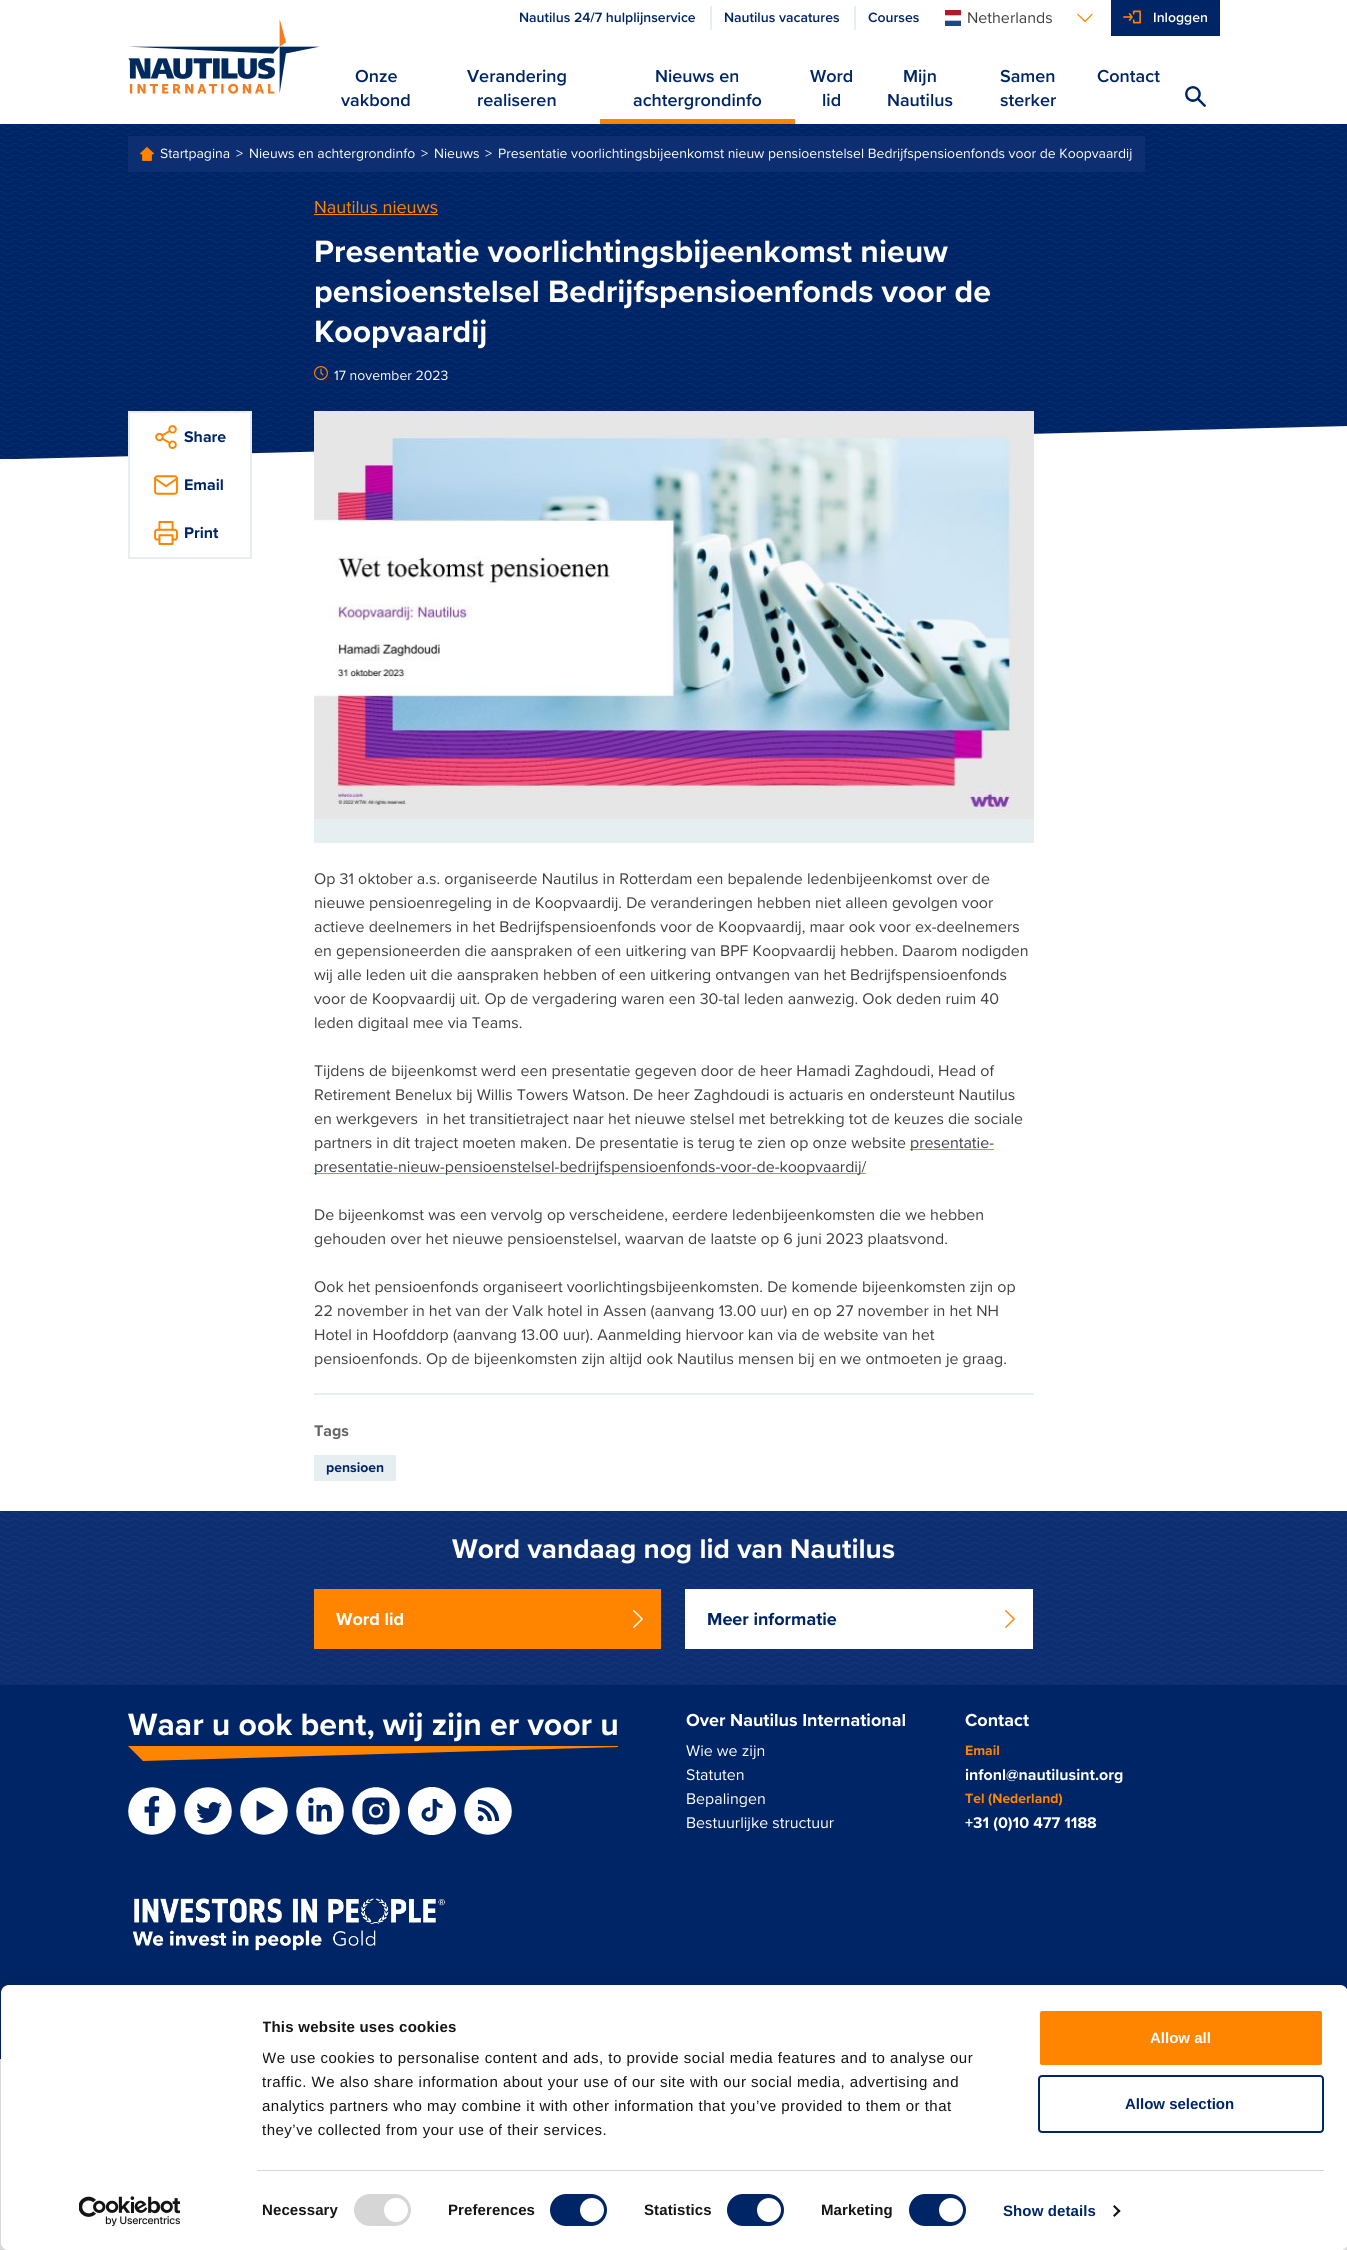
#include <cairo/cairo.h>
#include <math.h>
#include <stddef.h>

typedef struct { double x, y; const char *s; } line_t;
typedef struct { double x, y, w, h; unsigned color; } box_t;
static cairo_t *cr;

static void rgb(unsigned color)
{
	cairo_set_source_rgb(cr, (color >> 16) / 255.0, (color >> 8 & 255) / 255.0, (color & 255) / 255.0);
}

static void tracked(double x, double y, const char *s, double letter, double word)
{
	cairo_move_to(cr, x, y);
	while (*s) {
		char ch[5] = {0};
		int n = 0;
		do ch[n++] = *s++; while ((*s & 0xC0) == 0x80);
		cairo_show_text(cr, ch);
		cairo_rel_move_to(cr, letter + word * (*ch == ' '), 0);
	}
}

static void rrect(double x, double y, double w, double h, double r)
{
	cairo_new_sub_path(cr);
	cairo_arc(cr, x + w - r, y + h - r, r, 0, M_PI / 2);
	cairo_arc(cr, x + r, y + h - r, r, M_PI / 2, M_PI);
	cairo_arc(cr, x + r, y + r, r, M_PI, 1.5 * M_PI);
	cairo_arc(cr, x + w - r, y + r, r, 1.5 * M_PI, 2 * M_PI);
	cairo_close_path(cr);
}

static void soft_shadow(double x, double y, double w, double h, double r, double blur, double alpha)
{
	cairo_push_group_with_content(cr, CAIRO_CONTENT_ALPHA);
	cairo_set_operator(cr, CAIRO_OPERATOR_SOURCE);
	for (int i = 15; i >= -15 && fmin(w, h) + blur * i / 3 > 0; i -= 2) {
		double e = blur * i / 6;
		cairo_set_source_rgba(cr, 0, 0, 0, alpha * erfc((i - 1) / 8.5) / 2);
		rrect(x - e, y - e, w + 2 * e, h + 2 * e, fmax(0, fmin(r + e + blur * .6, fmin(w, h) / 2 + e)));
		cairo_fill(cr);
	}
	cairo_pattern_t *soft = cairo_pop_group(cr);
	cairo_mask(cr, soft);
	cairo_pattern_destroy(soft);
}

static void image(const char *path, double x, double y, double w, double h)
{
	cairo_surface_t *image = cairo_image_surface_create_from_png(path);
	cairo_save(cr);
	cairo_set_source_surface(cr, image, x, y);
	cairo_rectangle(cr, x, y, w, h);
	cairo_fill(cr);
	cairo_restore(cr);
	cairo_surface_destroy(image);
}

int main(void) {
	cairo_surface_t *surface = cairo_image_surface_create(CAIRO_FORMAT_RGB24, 1347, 2250);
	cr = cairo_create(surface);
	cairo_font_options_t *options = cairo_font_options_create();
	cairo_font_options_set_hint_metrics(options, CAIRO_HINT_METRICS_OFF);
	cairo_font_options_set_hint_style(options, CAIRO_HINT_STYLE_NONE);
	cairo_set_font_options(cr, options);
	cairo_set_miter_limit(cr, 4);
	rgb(0xffffff);
	cairo_paint(cr);
	image("img/1.png", 128, 19, 192, 75);
	rgb(0xe6eef2);
	cairo_rectangle(cr, 710, 6, 2, 24);
	cairo_fill(cr);
	cairo_rectangle(cr, 854, 6, 2, 24);
	cairo_fill(cr);
	image("img/2.png", 945, 10, 16, 16);
	image("img/3.png", 1077, 13, 16, 9);
	rgb(0x002567);
	cairo_rectangle(cr, 1111, 0, 109, 36);
	cairo_fill(cr);
	image("img/4.png", 1123, 10, 18, 14);
	rgb(0xff8500);
	cairo_rectangle(cr, 600, 119, 195, 5);
	cairo_fill(cr);
	image("img/5.png", 1185, 86, 21, 21);
	rgb(0x002567);
	cairo_new_path(cr);
	cairo_move_to(cr, 0, 124);
	cairo_line_to(cr, 0, 459);
	cairo_line_to(cr, 16, 459);
	cairo_line_to(cr, 1347, 426);
	cairo_line_to(cr, 1347, 124);
	cairo_close_path(cr);
	cairo_fill(cr);
	image("img/6.png", 0, 125, 1347, 334);
	rgb(0x0d2f71);
	cairo_rectangle(cr, 128, 136, 1017, 36);
	cairo_fill(cr);
	image("img/7.png", 140, 147, 14, 14);
	rgb(0xff8500);
	cairo_rectangle(cr, 314, 214, 124, 1);
	cairo_fill(cr);
	image("img/8.png", 314, 366, 14, 14);
	rgb(0xffffff);
	cairo_rectangle(cr, 130, 413, 120, 44);
	cairo_fill(cr);
	cairo_rectangle(cr, 129, 412, 122, 146);
	rgb(0xe6eef2);
	cairo_stroke(cr);
	image("img/9.png", 155, 425, 22, 24);
	image("img/10.png", 154, 475, 24, 20);
	image("img/11.png", 154, 521, 24, 24);
	image("img/12.png", 314, 411, 720, 408);
	{
		static const box_t items[] = {
			{314, 819, 720, 24, 0xe6eef2},
			{910, 1149, 84, 1, 0xff8500},
			{314, 1173, 552, 1, 0xff8500},
			{314, 1393, 720, 2, 0xe6eef2},
			{314, 1455, 82, 26, 0xe6eef2},
			{0, 1511, 1347, 174, 0x0d2f71},
		};
		for (size_t i = 0; i < sizeof items / sizeof *items; i++) {
			rgb(items[i].color);
			cairo_rectangle(cr, items[i].x, items[i].y, items[i].w, items[i].h);
			cairo_fill(cr);
		}
	}
	image("img/13.png", 0, 1512, 1347, 172);
	rgb(0xff8500);
	cairo_rectangle(cr, 314, 1589, 347, 60);
	cairo_fill(cr);
	image("img/14.png", 633, 1610, 10, 18);
	rgb(0xffffff);
	cairo_rectangle(cr, 685, 1589, 348, 60);
	cairo_fill(cr);
	image("img/15.png", 1005, 1610, 10, 18);
	rgb(0x002567);
	cairo_rectangle(cr, 0, 1685, 1347, 374);
	cairo_fill(cr);
	rgb(0xff8500);
	cairo_new_path(cr);
	cairo_move_to(cr, 128, 1746);
	cairo_line_to(cr, 158, 1746);
	cairo_line_to(cr, 143, 1761);
	cairo_close_path(cr);
	cairo_fill(cr);
	cairo_set_fill_rule(cr, CAIRO_FILL_RULE_EVEN_ODD);
	cairo_new_path(cr);
	cairo_move_to(cr, 143, 1761);
	cairo_line_to(cr, 618, 1747);
	cairo_line_to(cr, 618, 1746);
	cairo_line_to(cr, 143, 1746);
	cairo_fill(cr);
	image("img/16.png", 128, 1787, 48, 48);
	image("img/17.png", 184, 1787, 48, 48);
	image("img/18.png", 240, 1787, 48, 48);
	image("img/19.png", 296, 1787, 48, 48);
	image("img/20.png", 352, 1787, 48, 48);
	image("img/21.png", 408, 1787, 48, 48);
	image("img/22.png", 464, 1787, 48, 48);
	image("img/23.png", 132, 1898, 313, 53);
	cairo_save(cr);
	cairo_new_path(cr);
	cairo_move_to(cr, 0, 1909);
	cairo_line_to(cr, 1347, 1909);
	cairo_line_to(cr, 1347, 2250);
	cairo_line_to(cr, 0, 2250);
	cairo_close_path(cr);
	cairo_move_to(cr, 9, 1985);
	cairo_line_to(cr, 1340, 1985);
	cairo_curve_to(cr, 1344.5, 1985, 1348, 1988.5, 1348, 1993);
	cairo_line_to(cr, 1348, 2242);
	cairo_curve_to(cr, 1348, 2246.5, 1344.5, 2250, 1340, 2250);
	cairo_line_to(cr, 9, 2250);
	cairo_curve_to(cr, 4.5, 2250, 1, 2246.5, 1, 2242);
	cairo_line_to(cr, 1, 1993);
	cairo_curve_to(cr, 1, 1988.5, 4.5, 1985, 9, 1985);
	cairo_close_path(cr);
	cairo_clip(cr);
	rgb(0x000000);
	soft_shadow(1, 2015, 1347, 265, 8, 35, 0.3);
	cairo_restore(cr);
	rgb(0xffffff);
	rrect(1, 1985, 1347, 265, 8);
	cairo_fill(cr);
	rgb(0xd6d6d6);
	cairo_rectangle(cr, 257, 2170, 1067, 1);
	cairo_fill(cr);
	rrect(354, 2194, 57, 32, 16);
	cairo_fill(cr);
	rgb(0xffffff);
	cairo_arc(cr, 396, 2210, 12, 0, 2 * M_PI);
	cairo_fill(cr);
	rgb(0x002567);
	rrect(550, 2194, 57, 32, 16);
	cairo_fill(cr);
	rgb(0xffffff);
	cairo_arc(cr, 592, 2210, 12, 0, 2 * M_PI);
	cairo_fill(cr);
	rgb(0x002567);
	rrect(727, 2194, 57, 32, 16);
	cairo_fill(cr);
	rgb(0xffffff);
	cairo_arc(cr, 769, 2210, 12, 0, 2 * M_PI);
	cairo_fill(cr);
	rgb(0x002567);
	rrect(909, 2194, 57, 32, 16);
	cairo_fill(cr);
	rgb(0xffffff);
	cairo_arc(cr, 951, 2210, 12, 0, 2 * M_PI);
	cairo_fill(cr);
	rgb(0x141414);
	cairo_set_fill_rule(cr, CAIRO_FILL_RULE_WINDING);
	cairo_new_path(cr);
	cairo_move_to(cr, 1114.5, 2205);
	cairo_line_to(cr, 1120.5, 2211);
	cairo_line_to(cr, 1119, 2212.5);
	cairo_line_to(cr, 1113, 2206.5);
	cairo_close_path(cr);
	cairo_fill(cr);
	cairo_new_path(cr);
	cairo_move_to(cr, 1119, 2209.5);
	cairo_line_to(cr, 1120.5, 2211);
	cairo_line_to(cr, 1114.5, 2217);
	cairo_line_to(cr, 1113, 2215.5);
	cairo_close_path(cr);
	cairo_fill(cr);
	rgb(0xff8500);
	rrect(1039, 2010, 284, 56, 3);
	cairo_fill_preserve(cr);
	rgb(0xffffff);
	cairo_stroke(cr);
	rrect(1039, 2076, 284, 56, 3);
	rgb(0x002567);
	cairo_stroke(cr);
	image("img/24.png", 79, 2196, 101, 30);
	cairo_select_font_face(cr, "Proxima Nova SemiBold", CAIRO_FONT_SLANT_NORMAL, CAIRO_FONT_WEIGHT_NORMAL);
	cairo_set_font_size(cr, 14);
	{
		static const line_t items[] = {
			{519, 22, "Nautilus 24/7 hulplijnservice"},
			{724, 22, "Nautilus vacatures"},
			{868, 22, "Courses"},
		};
		for (size_t i = 0; i < sizeof items / sizeof *items; i++) {
			cairo_move_to(cr, items[i].x, items[i].y);
			cairo_show_text(cr, items[i].s);
		}
	}
	cairo_select_font_face(cr, "Proxima Nova", CAIRO_FONT_SLANT_NORMAL, CAIRO_FONT_WEIGHT_NORMAL);
	cairo_set_font_size(cr, 16);
	rgb(0x404040);
	cairo_move_to(cr, 967, 23);
	cairo_show_text(cr, "Netherlands");
	cairo_select_font_face(cr, "Proxima Nova SemiBold", CAIRO_FONT_SLANT_NORMAL, CAIRO_FONT_WEIGHT_NORMAL);
	cairo_set_font_size(cr, 14);
	rgb(0xffffff);
	cairo_move_to(cr, 1153, 22);
	cairo_show_text(cr, "Inloggen");
	cairo_set_font_size(cr, 18);
	rgb(0x002567);
	{
		static const line_t items[] = {
			{355, 82, "Onze"},
			{341, 106, "vakbond"},
			{467, 82, "Verandering"},
			{477, 106, "realiseren"},
			{655, 82, "Nieuws en"},
			{633, 106, "achtergrondinfo"},
			{810, 82, "Word"},
			{822, 106, "lid"},
			{903, 82, "Mijn"},
			{887, 106, "Nautilus"},
			{1000, 82, "Samen"},
			{1000, 106, "sterker"},
			{1097, 82, "Contact"},
		};
		for (size_t i = 0; i < sizeof items / sizeof *items; i++) {
			cairo_move_to(cr, items[i].x, items[i].y);
			cairo_show_text(cr, items[i].s);
		}
	}
	cairo_select_font_face(cr, "Proxima Nova", CAIRO_FONT_SLANT_NORMAL, CAIRO_FONT_WEIGHT_NORMAL);
	cairo_set_font_size(cr, 14);
	rgb(0xffffff);
	{
		static const line_t items[] = {
			{160, 158, "Startpagina"},
			{236, 158, ">"},
			{249, 158, "Nieuws en achtergrondinfo"},
			{421, 158, ">"},
			{434, 158, "Nieuws"},
			{485, 158, ">"},
			{498, 158, "Presentatie voorlichtingsbijeenkomst nieuw pensioenstelsel Bedrijfspensioenfonds voor de Koopvaardij"},
		};
		for (size_t i = 0; i < sizeof items / sizeof *items; i++) {
			cairo_move_to(cr, items[i].x, items[i].y);
			cairo_show_text(cr, items[i].s);
		}
	}
	cairo_set_font_size(cr, 18);
	rgb(0xff8500);
	cairo_move_to(cr, 314, 213);
	cairo_show_text(cr, "Nautilus nieuws");
	cairo_select_font_face(cr, "Proxima Nova", CAIRO_FONT_SLANT_NORMAL, CAIRO_FONT_WEIGHT_BOLD);
	cairo_set_font_size(cr, 32);
	rgb(0xffffff);
	{
		static const line_t items[] = {
			{314, 262, "Presentatie voorlichtingsbijeenkomst nieuw"},
			{314, 302, "pensioenstelsel Bedrijfspensioenfonds voor de"},
			{314, 342, "Koopvaardij"},
		};
		for (size_t i = 0; i < sizeof items / sizeof *items; i++) {
			cairo_move_to(cr, items[i].x, items[i].y);
			cairo_show_text(cr, items[i].s);
		}
	}
	cairo_select_font_face(cr, "Proxima Nova", CAIRO_FONT_SLANT_NORMAL, CAIRO_FONT_WEIGHT_NORMAL);
	cairo_set_font_size(cr, 14);
	cairo_move_to(cr, 334, 380);
	cairo_show_text(cr, "17 november 2023");
	cairo_select_font_face(cr, "Proxima Nova", CAIRO_FONT_SLANT_NORMAL, CAIRO_FONT_WEIGHT_BOLD);
	cairo_set_font_size(cr, 16);
	rgb(0x002567);
	{
		static const line_t items[] = {
			{184, 442, "Share"},
			{184, 490, "Email"},
			{184, 538, "Print"},
		};
		for (size_t i = 0; i < sizeof items / sizeof *items; i++) {
			cairo_move_to(cr, items[i].x, items[i].y);
			cairo_show_text(cr, items[i].s);
		}
	}
	cairo_select_font_face(cr, "Proxima Nova", CAIRO_FONT_SLANT_NORMAL, CAIRO_FONT_WEIGHT_NORMAL);
	rgb(0x404040);
	{
		static const line_t items[] = {
			{314, 884, "Op 31 oktober a.s. organiseerde Nautilus in Rotterdam een bepalende ledenbijeenkomst over de"},
			{314, 908, "nieuwe pensioenregeling in de Koopvaardij. De veranderingen hebben niet alleen gevolgen voor"},
			{314, 932, "actieve deelnemers in het Bedrijfspensioenfonds voor de Koopvaardij, maar ook voor ex-deelnemers"},
			{314, 956, "en gepensioneerden die aanspraken of een uitkering van BPF Koopvaardij hebben. Daarom nodigden"},
			{314, 980, "wij alle leden uit die aanspraken hebben of een uitkering ontvangen van het Bedrijfspensioenfonds"},
			{314, 1004, "voor de Koopvaardij uit. Op de vergadering waren een 30-tal leden aanwezig. Ook deden ruim 40"},
			{314, 1028, "leden digitaal mee via Teams."},
			{314, 1076, "Tijdens de bijeenkomst werd een presentatie gegeven door de heer Hamadi Zaghdoudi, Head of"},
			{314, 1100, "Retirement Benelux bij Willis Towers Watson. De heer Zaghdoudi is actuaris en ondersteunt Nautilus"},
			{314, 1124, "en werkgevers  in het transitietraject naar het nieuwe stelsel met betrekking tot de keuzes die sociale"},
			{314, 1148, "partners in dit traject moeten maken. De presentatie is terug te zien op onze website"},
			{910, 1148, "presentatie-"},
			{314, 1172, "presentatie-nieuw-pensioenstelsel-bedrijfspensioenfonds-voor-de-koopvaardij/"},
			{314, 1220, "De bijeenkomst was een vervolg op verscheidene, eerdere ledenbijeenkomsten die we hebben"},
			{314, 1244, "gehouden over het nieuwe pensioenstelsel, waarvan de laatste op 6 juni 2023 plaatsvond."},
			{314, 1292, "Ook het pensioenfonds organiseert voorlichtingsbijeenkomsten. De komende bijeenkomsten zijn op"},
			{314, 1316, "22 november in het van der Valk hotel in Assen (aanvang 13.00 uur) en op 27 november in het NH"},
			{314, 1340, "Hotel in Hoofddorp (aanvang 13.00 uur). Aanmelding hiervoor kan via de website van het"},
			{314, 1364, "pensioenfonds. Op de bijeenkomsten zijn altijd ook Nautilus mensen bij en we ontmoeten je graag."},
		};
		for (size_t i = 0; i < sizeof items / sizeof *items; i++) {
			cairo_move_to(cr, items[i].x, items[i].y);
			cairo_show_text(cr, items[i].s);
		}
	}
	cairo_select_font_face(cr, "Proxima Nova", CAIRO_FONT_SLANT_NORMAL, CAIRO_FONT_WEIGHT_BOLD);
	rgb(0x666666);
	cairo_move_to(cr, 314, 1436);
	cairo_show_text(cr, "Tags");
	cairo_set_font_size(cr, 14);
	rgb(0x002567);
	cairo_move_to(cr, 326, 1472);
	cairo_show_text(cr, "pensioen");
	cairo_set_font_size(cr, 28);
	rgb(0xffffff);
	cairo_move_to(cr, 452, 1558);
	cairo_show_text(cr, "Word vandaag nog lid van Nautilus");
	cairo_set_font_size(cr, 18);
	cairo_move_to(cr, 336, 1625);
	cairo_show_text(cr, "Word lid");
	rgb(0x002567);
	cairo_move_to(cr, 707, 1625);
	cairo_show_text(cr, "Meer informatie");
	cairo_set_font_size(cr, 32);
	rgb(0xffffff);
	cairo_move_to(cr, 128, 1735);
	cairo_show_text(cr, "Waar u ook bent, wij zijn er voor u");
	cairo_set_font_size(cr, 18);
	cairo_move_to(cr, 686, 1726);
	cairo_show_text(cr, "Over Nautilus International");
	cairo_select_font_face(cr, "Proxima Nova", CAIRO_FONT_SLANT_NORMAL, CAIRO_FONT_WEIGHT_NORMAL);
	cairo_set_font_size(cr, 16);
	{
		static const line_t items[] = {
			{686, 1756, "Wie we zijn"},
			{686, 1780, "Statuten"},
			{686, 1804, "Bepalingen"},
			{686, 1828, "Bestuurlijke structuur"},
		};
		for (size_t i = 0; i < sizeof items / sizeof *items; i++) {
			cairo_move_to(cr, items[i].x, items[i].y);
			cairo_show_text(cr, items[i].s);
		}
	}
	cairo_select_font_face(cr, "Proxima Nova", CAIRO_FONT_SLANT_NORMAL, CAIRO_FONT_WEIGHT_BOLD);
	cairo_set_font_size(cr, 18);
	cairo_move_to(cr, 965, 1726);
	cairo_show_text(cr, "Contact");
	cairo_set_font_size(cr, 14);
	rgb(0xff8500);
	cairo_move_to(cr, 965, 1755);
	cairo_show_text(cr, "Email");
	cairo_set_font_size(cr, 16);
	rgb(0xffffff);
	cairo_move_to(cr, 965, 1780);
	cairo_show_text(cr, "infonl@nautilusint.org");
	cairo_set_font_size(cr, 14);
	rgb(0xff8500);
	cairo_move_to(cr, 965, 1803);
	cairo_show_text(cr, "Tel (Nederland)");
	cairo_set_font_size(cr, 16);
	rgb(0xffffff);
	cairo_move_to(cr, 965, 1828);
	cairo_show_text(cr, "+31 (0)10 477 1188");
	cairo_save(cr);
	cairo_rectangle(cr, 263, 2015, 746, 127);
	cairo_clip(cr);
	cairo_select_font_face(cr, "Liberation Sans", CAIRO_FONT_SLANT_NORMAL, CAIRO_FONT_WEIGHT_BOLD);
	cairo_set_font_size(cr, 15);
	rgb(0x141414);
	tracked(262, 2032, "This website uses cookies", 0.25, 0);
	cairo_select_font_face(cr, "Liberation Sans", CAIRO_FONT_SLANT_NORMAL, CAIRO_FONT_WEIGHT_NORMAL);
	tracked(262, 2063, "We use cookies to personalise content and ads, to provide social media features and to analyse our", 0.5, 0);
	cairo_restore(cr);
	cairo_select_font_face(cr, "Liberation Sans", CAIRO_FONT_SLANT_NORMAL, CAIRO_FONT_WEIGHT_NORMAL);
	cairo_set_font_size(cr, 15);
	rgb(0x141414);
	{
		static const line_t items[] = {
			{262, 2087, "traffic. We also share information about your use of our site with our social media, advertising and"},
			{262, 2111, "analytics partners who may combine it with other information that you’ve provided to them or that"},
			{262, 2135, "they’ve collected from your use of their services."},
		};
		for (size_t i = 0; i < sizeof items / sizeof *items; i++) {
			tracked(items[i].x, items[i].y, items[i].s, 0.5, 0);
		}
	}
	cairo_select_font_face(cr, "Liberation Sans", CAIRO_FONT_SLANT_NORMAL, CAIRO_FONT_WEIGHT_BOLD);
	{
		static const line_t items[] = {
			{262, 2215, "Necessary"},
			{448, 2215, "Preferences"},
			{644, 2215, "Statistics"},
			{821, 2215, "Marketing"},
		};
		for (size_t i = 0; i < sizeof items / sizeof *items; i++) {
			tracked(items[i].x, items[i].y, items[i].s, 0.1, 0);
		}
	}
	rgb(0x002567);
	tracked(1003, 2216, "Show details", 0.1, 0);
	rgb(0xffffff);
	cairo_move_to(cr, 1150, 2043);
	cairo_show_text(cr, "Allow all");
	rgb(0x002567);
	cairo_move_to(cr, 1125, 2109);
	cairo_show_text(cr, "Allow selection");
	cairo_surface_write_to_png(surface, "page.png");
	cairo_font_options_destroy(options);
	cairo_destroy(cr);
	cairo_surface_destroy(surface);
	return 0;
}
